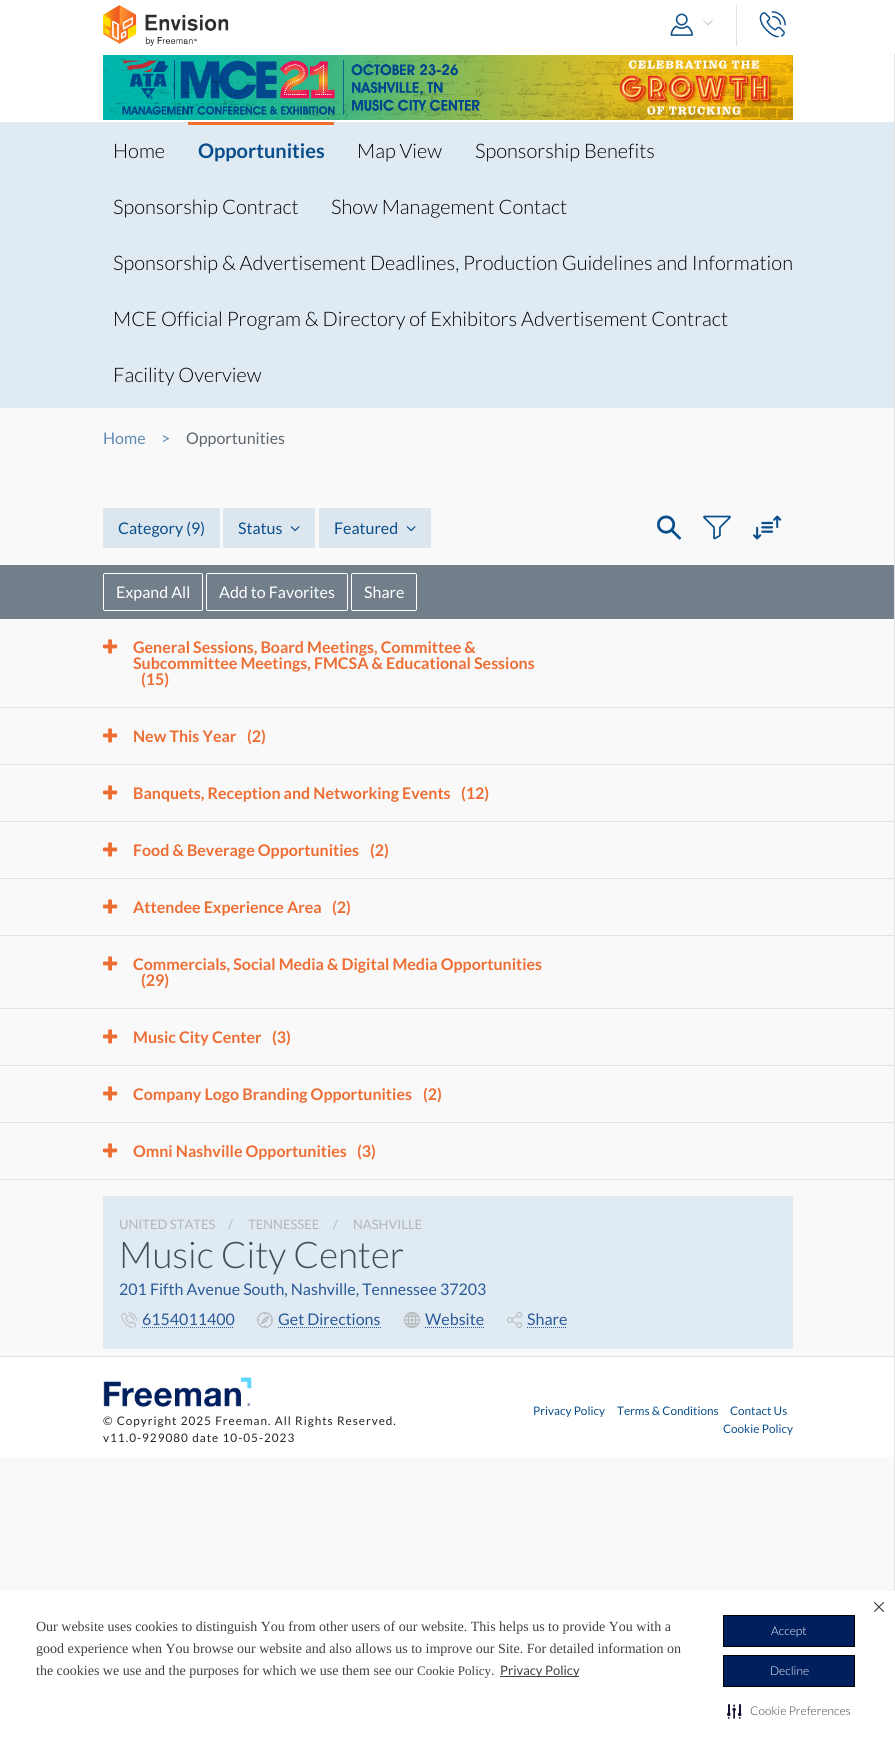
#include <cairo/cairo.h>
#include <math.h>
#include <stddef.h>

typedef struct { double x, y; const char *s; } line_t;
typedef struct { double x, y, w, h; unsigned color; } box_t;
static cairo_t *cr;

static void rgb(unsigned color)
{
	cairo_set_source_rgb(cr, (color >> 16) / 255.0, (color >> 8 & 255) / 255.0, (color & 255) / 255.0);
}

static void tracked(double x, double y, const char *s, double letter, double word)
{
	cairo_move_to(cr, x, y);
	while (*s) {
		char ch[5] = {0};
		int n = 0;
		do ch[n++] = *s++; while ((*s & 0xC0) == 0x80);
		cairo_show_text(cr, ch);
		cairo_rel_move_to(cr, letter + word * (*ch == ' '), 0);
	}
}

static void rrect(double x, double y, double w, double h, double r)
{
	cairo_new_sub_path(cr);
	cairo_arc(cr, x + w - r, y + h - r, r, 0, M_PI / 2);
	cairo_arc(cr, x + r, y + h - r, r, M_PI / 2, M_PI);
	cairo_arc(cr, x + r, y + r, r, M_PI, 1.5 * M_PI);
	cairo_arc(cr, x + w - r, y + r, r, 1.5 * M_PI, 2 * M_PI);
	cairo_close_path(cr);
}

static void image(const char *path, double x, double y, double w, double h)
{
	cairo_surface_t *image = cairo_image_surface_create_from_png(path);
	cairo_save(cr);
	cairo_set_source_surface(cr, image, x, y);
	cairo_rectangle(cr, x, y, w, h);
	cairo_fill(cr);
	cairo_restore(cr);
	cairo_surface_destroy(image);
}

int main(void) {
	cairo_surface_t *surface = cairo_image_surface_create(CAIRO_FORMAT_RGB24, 895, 1759);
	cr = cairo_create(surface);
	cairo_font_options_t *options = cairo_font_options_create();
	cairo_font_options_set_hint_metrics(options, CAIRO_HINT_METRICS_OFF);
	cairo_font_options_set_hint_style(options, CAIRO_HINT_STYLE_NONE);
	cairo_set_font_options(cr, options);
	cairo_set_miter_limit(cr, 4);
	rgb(0xf9f9f9);
	cairo_paint(cr);
	rgb(0xffffff);
	cairo_rectangle(cr, 0, 0, 895, 53);
	cairo_fill(cr);
	image("img/1.png", 103, 5, 126, 41);
	rgb(0xe2e2e2);
	cairo_rectangle(cr, 736, 5, 1, 41);
	cairo_fill(cr);
	image("img/2.png", 670, 13, 23, 23);
	rgb(0xcccccc);
	cairo_new_path(cr);
	cairo_move_to(cr, 712, 20);
	cairo_line_to(cr, 713, 20.5);
	cairo_line_to(cr, 708, 25.5);
	cairo_line_to(cr, 707, 24.5);
	cairo_close_path(cr);
	cairo_fill(cr);
	cairo_new_path(cr);
	cairo_move_to(cr, 703.5, 20);
	cairo_line_to(cr, 708.5, 24.5);
	cairo_line_to(cr, 708, 25.5);
	cairo_line_to(cr, 703, 20.5);
	cairo_close_path(cr);
	cairo_fill(cr);
	image("img/3.png", 759, 11, 27, 27);
	rgb(0xffffff);
	cairo_rectangle(cr, 0, 53, 894, 69);
	cairo_fill(cr);
	image("img/4.png", 103, 55, 690, 65);
	{
		static const box_t items[] = {
			{0, 707, 895, 1, 0xe2e2e2},
			{0, 764, 895, 1, 0xe2e2e2},
			{0, 821, 895, 1, 0xe2e2e2},
			{0, 878, 895, 1, 0xe2e2e2},
			{0, 935, 895, 1, 0xe2e2e2},
			{0, 1008, 895, 1, 0xe2e2e2},
			{0, 1065, 895, 1, 0xe2e2e2},
			{0, 1122, 895, 1, 0xe2e2e2},
			{0, 1179, 895, 1, 0xe2e2e2},
			{0, 1356, 895, 1, 0xe2e2e2},
			{894, 53, 1, 1538, 0xe2e2e2},
			{0, 122, 894, 286, 0xdfeaf2},
			{188, 122, 146, 3, 0xee6d33},
		};
		for (size_t i = 0; i < sizeof items / sizeof *items; i++) {
			rgb(items[i].color);
			cairo_rectangle(cr, items[i].x, items[i].y, items[i].w, items[i].h);
			cairo_fill(cr);
		}
	}
	rgb(0xdce6ef);
	rrect(103, 508, 117, 40, 2);
	cairo_fill(cr);
	rrect(223, 508, 92, 40, 2);
	cairo_fill(cr);
	image("img/5.png", 290, 526, 10, 6);
	rrect(319, 508, 112, 40, 2);
	cairo_fill(cr);
	image("img/5.png", 406, 526, 10, 6);
	image("img/6.png", 657, 515, 24, 25);
	image("img/7.png", 703, 515, 28, 25);
	image("img/8.png", 753, 515, 29, 25);
	rgb(0x727f8b);
	cairo_rectangle(cr, 0, 565, 894, 54);
	cairo_fill(cr);
	rrect(103.5, 573.5, 99, 37, 1.5);
	rgb(0xffffff);
	cairo_set_line_width(cr, 1);
	cairo_stroke(cr);
	rrect(206.5, 573.5, 141, 37, 1.5);
	cairo_stroke(cr);
	rrect(351.5, 573.5, 65, 37, 1.5);
	cairo_stroke(cr);
	image("img/9.png", 103, 639, 15, 15);
	image("img/9.png", 103, 728, 15, 15);
	image("img/9.png", 103, 785, 15, 15);
	image("img/9.png", 103, 842, 15, 15);
	image("img/9.png", 103, 899, 15, 15);
	image("img/9.png", 103, 956, 15, 15);
	image("img/9.png", 103, 1029, 15, 15);
	image("img/9.png", 103, 1086, 15, 15);
	image("img/9.png", 103, 1143, 15, 15);
	rgb(0xdfeaf2);
	cairo_rectangle(cr, 103, 1196, 690, 153);
	cairo_fill(cr);
	image("img/10.png", 121, 1312, 16, 16);
	cairo_new_path(cr);
	cairo_move_to(cr, 142, 1327.5);
	cairo_line_to(cr, 234, 1327.5);
	rgb(0x2b5a99);
	cairo_set_dash(cr, (double[]){1, 1}, 2, 0);
	cairo_stroke(cr);
	image("img/11.png", 257, 1312, 16, 16);
	cairo_new_path(cr);
	cairo_move_to(cr, 278, 1327.5);
	cairo_line_to(cr, 381, 1327.5);
	cairo_stroke(cr);
	image("img/12.png", 404, 1312, 16, 16);
	cairo_new_path(cr);
	cairo_move_to(cr, 425, 1327.5);
	cairo_line_to(cr, 484, 1327.5);
	cairo_stroke(cr);
	image("img/13.png", 507, 1312, 16, 16);
	cairo_new_path(cr);
	cairo_move_to(cr, 527, 1327.5);
	cairo_line_to(cr, 567, 1327.5);
	cairo_stroke(cr);
	rgb(0xffffff);
	cairo_rectangle(cr, 0, 1357, 894, 100);
	cairo_fill(cr);
	image("img/14.png", 103, 1377, 149, 30);
	cairo_rectangle(cr, 0, 1591, 895, 168);
	cairo_fill(cr);
	rgb(0x404040);
	cairo_rectangle(cr, 500, 1676, 79, 1);
	cairo_fill(cr);
	image("img/15.png", 874, 1602, 10, 10);
	rgb(0x001f5f);
	cairo_rectangle(cr, 723.5, 1615.5, 131, 31);
	cairo_fill_preserve(cr);
	rgb(0x000000);
	cairo_set_dash(cr, NULL, 0, 0);
	cairo_stroke(cr);
	rgb(0x001f5f);
	cairo_rectangle(cr, 723.5, 1655.5, 131, 31);
	cairo_fill_preserve(cr);
	rgb(0x000000);
	cairo_stroke(cr);
	image("img/16.png", 727, 1704, 15, 15);
	cairo_select_font_face(cr, "Lato Light", CAIRO_FONT_SLANT_NORMAL, CAIRO_FONT_WEIGHT_NORMAL);
	cairo_set_font_size(cr, 20);
	cairo_move_to(cr, 113, 158);
	cairo_show_text(cr, "Home");
	cairo_select_font_face(cr, "Lato", CAIRO_FONT_SLANT_NORMAL, CAIRO_FONT_WEIGHT_BOLD);
	rgb(0x0a4e8b);
	cairo_move_to(cr, 198, 158);
	cairo_show_text(cr, "Opportunities");
	cairo_select_font_face(cr, "Lato Light", CAIRO_FONT_SLANT_NORMAL, CAIRO_FONT_WEIGHT_NORMAL);
	rgb(0x000000);
	{
		static const line_t items[] = {
			{357, 158, "Map View"},
			{475, 158, "Sponsorship Benefits"},
			{113, 214, "Sponsorship Contract"},
			{331, 214, "Show Management Contact"},
			{113, 270, "Sponsorship & Advertisement Deadlines, Production Guidelines and Information"},
			{113, 326, "MCE Official Program & Directory of Exhibitors Advertisement Contract"},
			{113, 382, "Facility Overview"},
		};
		for (size_t i = 0; i < sizeof items / sizeof *items; i++) {
			cairo_move_to(cr, items[i].x, items[i].y);
			cairo_show_text(cr, items[i].s);
		}
	}
	cairo_select_font_face(cr, "Lato", CAIRO_FONT_SLANT_NORMAL, CAIRO_FONT_WEIGHT_NORMAL);
	cairo_set_font_size(cr, 16);
	rgb(0x5e8ab2);
	cairo_move_to(cr, 103, 444);
	cairo_show_text(cr, "Home");
	cairo_move_to(cr, 161, 444);
	cairo_show_text(cr, ">");
	rgb(0x5d6770);
	cairo_move_to(cr, 186, 444);
	cairo_show_text(cr, "Opportunities");
	rgb(0x0a4e8b);
	{
		static const line_t items[] = {
			{118, 534, "Category (9)"},
			{238, 534, "Status"},
			{334, 534, "Featured"},
		};
		for (size_t i = 0; i < sizeof items / sizeof *items; i++) {
			cairo_move_to(cr, items[i].x, items[i].y);
			cairo_show_text(cr, items[i].s);
		}
	}
	rgb(0xffffff);
	{
		static const line_t items[] = {
			{116, 598, "Expand All"},
			{219, 598, "Add to Favorites"},
			{364, 598, "Share"},
		};
		for (size_t i = 0; i < sizeof items / sizeof *items; i++) {
			cairo_move_to(cr, items[i].x, items[i].y);
			cairo_show_text(cr, items[i].s);
		}
	}
	cairo_select_font_face(cr, "Lato", CAIRO_FONT_SLANT_NORMAL, CAIRO_FONT_WEIGHT_BOLD);
	rgb(0xee6d33);
	{
		static const line_t items[] = {
			{133, 653, "General Sessions, Board Meetings, Committee &"},
			{133, 669, "Subcommittee Meetings, FMCSA & Educational Sessions"},
			{141, 685, "(15)"},
			{133, 742, "New This Year"},
			{247, 742, "(2)"},
			{133, 799, "Banquets, Reception and Networking Events"},
			{461, 799, "(12)"},
			{133, 856, "Food & Beverage Opportunities"},
			{370, 856, "(2)"},
			{133, 913, "Attendee Experience Area"},
			{332, 913, "(2)"},
			{133, 970, "Commercials, Social Media & Digital Media Opportunities"},
			{141, 986, "(29)"},
			{133, 1043, "Music City Center"},
			{272, 1043, "(3)"},
			{133, 1100, "Company Logo Branding Opportunities"},
			{423, 1100, "(2)"},
			{133, 1157, "Omni Nashville Opportunities"},
			{357, 1157, "(3)"},
		};
		for (size_t i = 0; i < sizeof items / sizeof *items; i++) {
			cairo_move_to(cr, items[i].x, items[i].y);
			cairo_show_text(cr, items[i].s);
		}
	}
	cairo_select_font_face(cr, "Lato", CAIRO_FONT_SLANT_NORMAL, CAIRO_FONT_WEIGHT_NORMAL);
	cairo_set_font_size(cr, 13);
	rgb(0xb2b7b8);
	{
		static const line_t items[] = {
			{119, 1229, "UNITED STATES"},
			{228, 1229, "/"},
			{248, 1229, "TENNESSEE"},
			{333, 1229, "/"},
			{353, 1229, "NASHVILLE"},
		};
		for (size_t i = 0; i < sizeof items / sizeof *items; i++) {
			cairo_move_to(cr, items[i].x, items[i].y);
			cairo_show_text(cr, items[i].s);
		}
	}
	cairo_select_font_face(cr, "Lato Light", CAIRO_FONT_SLANT_NORMAL, CAIRO_FONT_WEIGHT_NORMAL);
	cairo_set_font_size(cr, 36.75);
	rgb(0x3d4e5c);
	cairo_move_to(cr, 119, 1268);
	cairo_show_text(cr, "Music City Center");
	cairo_select_font_face(cr, "Lato", CAIRO_FONT_SLANT_NORMAL, CAIRO_FONT_WEIGHT_NORMAL);
	cairo_set_font_size(cr, 16);
	rgb(0x2b5a99);
	{
		static const line_t items[] = {
			{119, 1295, "201 Fifth Avenue South, Nashville, Tennessee 37203"},
			{142, 1325, "6154011400"},
			{278, 1325, "Get Directions"},
			{425, 1325, "Website"},
			{527, 1325, "Share"},
		};
		for (size_t i = 0; i < sizeof items / sizeof *items; i++) {
			cairo_move_to(cr, items[i].x, items[i].y);
			cairo_show_text(cr, items[i].s);
		}
	}
	cairo_set_font_size(cr, 11.75);
	rgb(0x212529);
	tracked(103, 1425, "© Copyright 2025 Freeman. All Rights Reserved.", 1, 0);
	tracked(103, 1442, "v11.0-929080 date 10-05-2023", 1, 0);
	rgb(0x0a4e8b);
	{
		static const line_t items[] = {
			{533, 1415, "Privacy Policy"},
			{617, 1415, "Terms & Conditions"},
			{730, 1415, "Contact Us"},
			{723, 1433, "Cookie Policy"},
		};
		for (size_t i = 0; i < sizeof items / sizeof *items; i++) {
			cairo_move_to(cr, items[i].x, items[i].y);
			cairo_show_text(cr, items[i].s);
		}
	}
	cairo_select_font_face(cr, "Liberation Serif", CAIRO_FONT_SLANT_NORMAL, CAIRO_FONT_WEIGHT_NORMAL);
	cairo_set_font_size(cr, 14);
	rgb(0x404040);
	{
		static const line_t items[] = {
			{36, 1631, "Our website uses cookies to distinguish You from other users of our website. This helps us to provide You with a"},
			{36, 1653, "good experience when You browse our website and also allows us to improve our Site. For detailed information on"},
			{36, 1675, "the cookies we use and the purposes for which we use them see our"},
		};
		for (size_t i = 0; i < sizeof items / sizeof *items; i++) {
			cairo_move_to(cr, items[i].x, items[i].y);
			cairo_show_text(cr, items[i].s);
		}
	}
	cairo_set_font_size(cr, 13);
	cairo_move_to(cr, 417, 1675);
	cairo_show_text(cr, "Cookie Policy");
	cairo_set_font_size(cr, 14);
	cairo_move_to(cr, 491, 1675);
	cairo_show_text(cr, ".");
	cairo_select_font_face(cr, "Lato", CAIRO_FONT_SLANT_NORMAL, CAIRO_FONT_WEIGHT_NORMAL);
	cairo_set_font_size(cr, 13);
	cairo_move_to(cr, 500, 1675);
	cairo_show_text(cr, "Privacy Policy");
	cairo_select_font_face(cr, "Lato Light", CAIRO_FONT_SLANT_NORMAL, CAIRO_FONT_WEIGHT_NORMAL);
	cairo_set_font_size(cr, 12);
	rgb(0xffffff);
	cairo_move_to(cr, 771, 1635);
	cairo_show_text(cr, "Accept");
	cairo_move_to(cr, 770, 1675);
	cairo_show_text(cr, "Decline");
	rgb(0x404040);
	cairo_move_to(cr, 750, 1715);
	cairo_show_text(cr, "Cookie Preferences");
	cairo_surface_write_to_png(surface, "page.png");
	cairo_font_options_destroy(options);
	cairo_destroy(cr);
	cairo_surface_destroy(surface);
	return 0;
}
